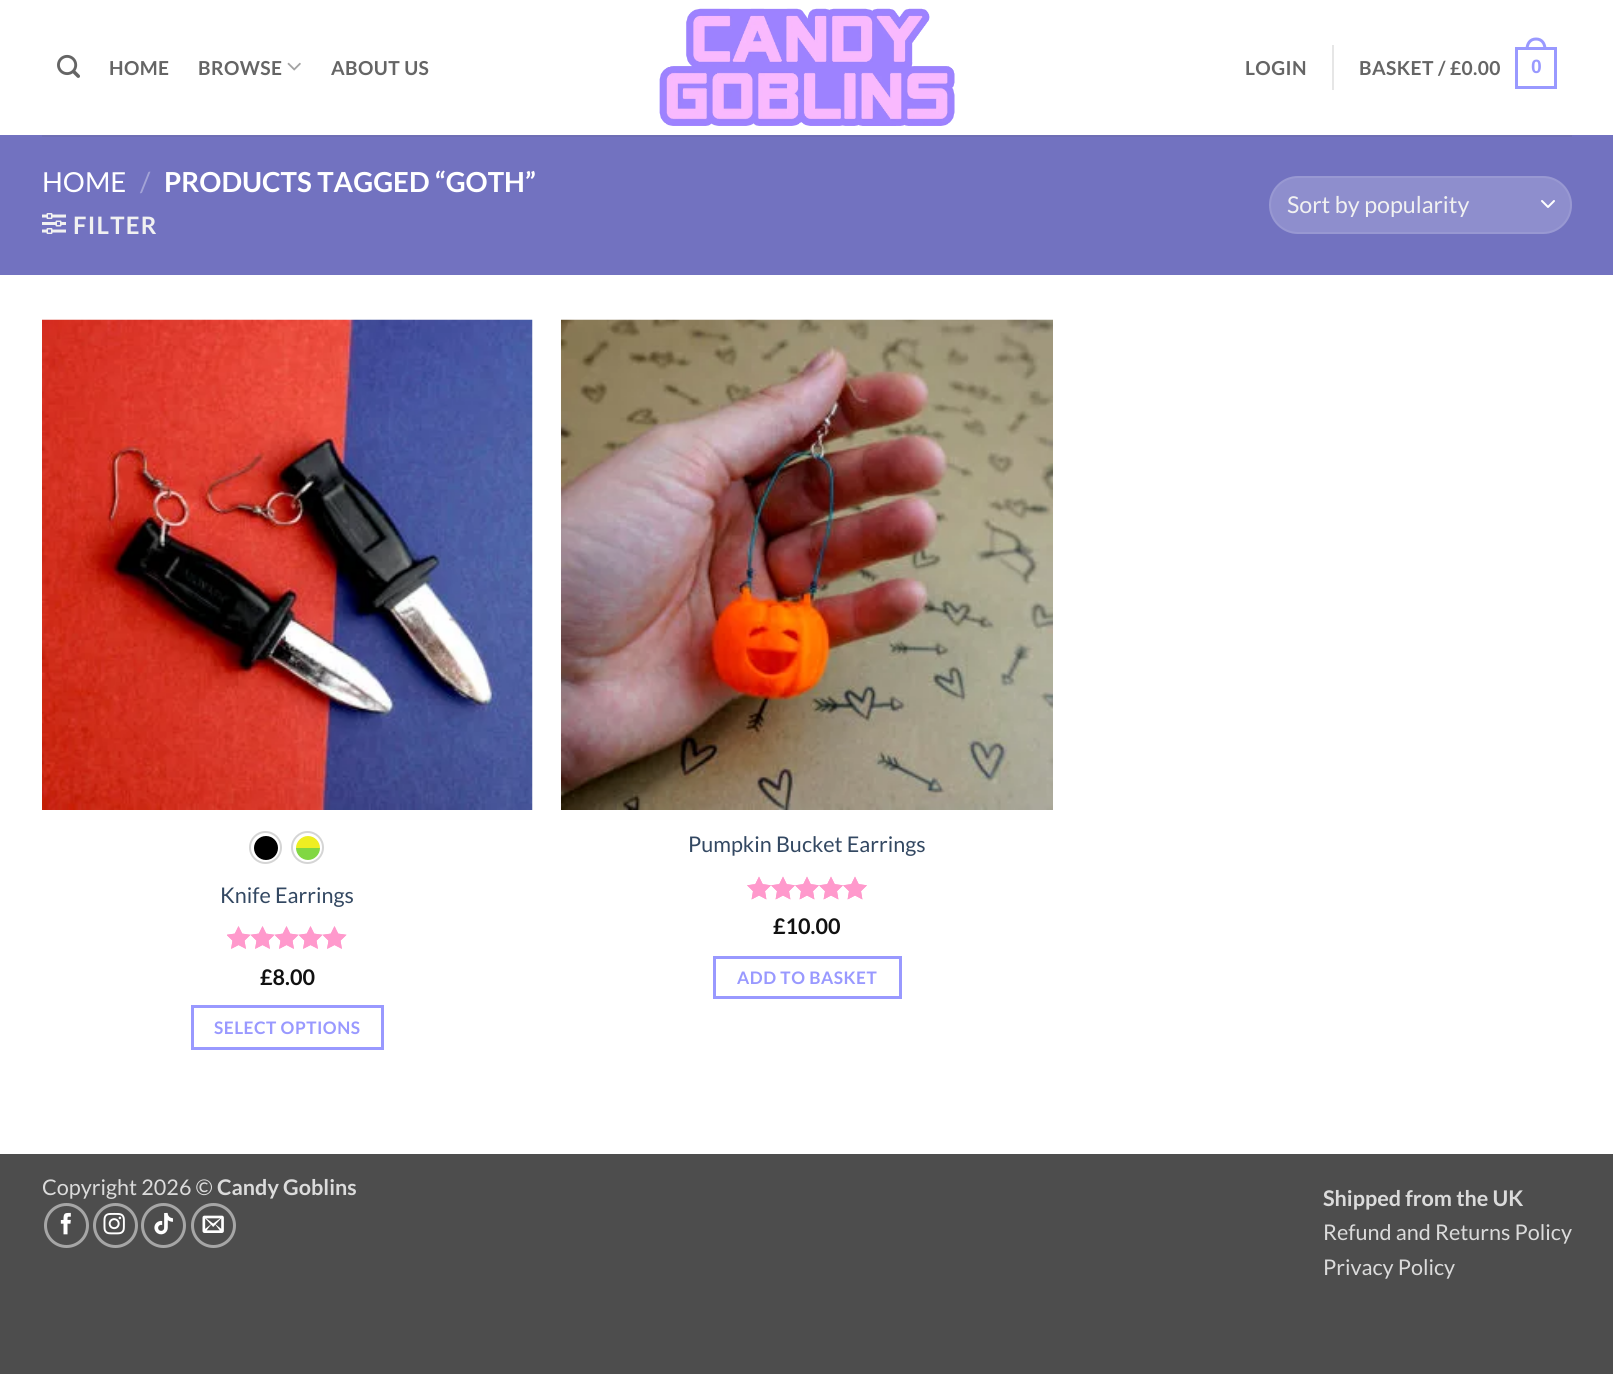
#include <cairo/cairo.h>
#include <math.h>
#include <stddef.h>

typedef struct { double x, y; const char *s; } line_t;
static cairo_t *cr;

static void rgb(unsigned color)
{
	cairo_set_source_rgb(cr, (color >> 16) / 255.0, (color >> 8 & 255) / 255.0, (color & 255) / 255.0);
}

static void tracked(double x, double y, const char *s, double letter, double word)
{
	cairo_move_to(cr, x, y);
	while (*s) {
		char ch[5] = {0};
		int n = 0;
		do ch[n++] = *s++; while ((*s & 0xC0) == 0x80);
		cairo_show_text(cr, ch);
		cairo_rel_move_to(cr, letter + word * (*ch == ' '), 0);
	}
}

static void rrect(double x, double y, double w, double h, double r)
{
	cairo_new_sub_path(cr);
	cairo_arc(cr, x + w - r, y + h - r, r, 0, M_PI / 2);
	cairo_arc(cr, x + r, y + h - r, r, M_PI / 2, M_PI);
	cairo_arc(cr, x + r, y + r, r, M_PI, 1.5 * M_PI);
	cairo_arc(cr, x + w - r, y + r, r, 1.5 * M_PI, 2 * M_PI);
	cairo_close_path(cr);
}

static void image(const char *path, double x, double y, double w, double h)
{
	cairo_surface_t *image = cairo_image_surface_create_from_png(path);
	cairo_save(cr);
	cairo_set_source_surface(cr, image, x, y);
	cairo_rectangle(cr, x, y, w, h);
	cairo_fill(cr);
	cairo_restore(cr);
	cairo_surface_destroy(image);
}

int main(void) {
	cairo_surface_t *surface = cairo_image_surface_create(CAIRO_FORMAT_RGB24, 1613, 1374);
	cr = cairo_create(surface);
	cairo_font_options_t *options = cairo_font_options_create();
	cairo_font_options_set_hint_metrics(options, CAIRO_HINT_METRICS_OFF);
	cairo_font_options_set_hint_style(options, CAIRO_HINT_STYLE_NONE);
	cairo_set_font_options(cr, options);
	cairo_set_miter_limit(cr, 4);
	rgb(0x4d4d4d);
	cairo_paint(cr);
	rgb(0xffffff);
	cairo_rectangle(cr, 0, 0, 1613, 1154);
	cairo_fill(cr);
	image("img/1.png", 57, 54, 23, 24);
	image("img/2.png", 287, 62, 14, 9);
	image("img/3.png", 659, 8, 296, 118);
	rgb(0xe6e6e6);
	cairo_rectangle(cr, 1332, 45, 2, 45);
	cairo_fill(cr);
	cairo_rectangle(cr, 1516.5, 48.5, 39, 39);
	rgb(0x9999ff);
	cairo_set_line_width(cr, 3);
	cairo_stroke(cr);
	cairo_set_fill_rule(cr, CAIRO_FILL_RULE_EVEN_ODD);
	cairo_new_path(cr);
	cairo_move_to(cr, 1536, 37.5);
	cairo_curve_to(cr, 1543, 37.5, 1546.5, 43, 1546.5, 49.5);
	cairo_line_to(cr, 1525.5, 49.5);
	cairo_curve_to(cr, 1525.5, 43, 1529, 37.5, 1536, 37.5);
	cairo_close_path(cr);
	cairo_move_to(cr, 1536, 40.5);
	cairo_curve_to(cr, 1541.5, 40.5, 1543.5, 45, 1543.5, 49.5);
	cairo_line_to(cr, 1528.5, 49.5);
	cairo_curve_to(cr, 1528.5, 45, 1530.5, 40.5, 1536, 40.5);
	cairo_close_path(cr);
	cairo_fill(cr);
	rgb(0x7272c0);
	cairo_rectangle(cr, 0, 135, 1613, 140);
	cairo_fill(cr);
	rgb(0x6e6eb4);
	cairo_rectangle(cr, 42, 135, 1530, 2);
	cairo_fill(cr);
	image("img/4.png", 42, 213, 24, 21);
	rgb(0x8e8ecd);
	rrect(1269, 176, 303, 58, 29);
	cairo_fill(cr);
	cairo_new_path(cr);
	cairo_move_to(cr, 1542, 201);
	cairo_line_to(cr, 1548, 207);
	cairo_line_to(cr, 1554, 201);
	rgb(0xffffff);
	cairo_set_line_width(cr, 2);
	cairo_set_line_cap(cr, CAIRO_LINE_CAP_ROUND);
	cairo_set_line_join(cr, CAIRO_LINE_JOIN_ROUND);
	cairo_stroke(cr);
	rrect(1270, 177, 301, 56, 28);
	cairo_set_source_rgba(cr, 1, 1, 1, 0.09);
	cairo_set_line_cap(cr, CAIRO_LINE_CAP_BUTT);
	cairo_set_line_join(cr, CAIRO_LINE_JOIN_MITER);
	cairo_stroke(cr);
	image("img/5.png", 42, 319, 491, 491);
	cairo_arc(cr, 265.5, 847.5, 15.5, 0, 2 * M_PI);
	rgb(0xd5d5d5);
	cairo_stroke(cr);
	rgb(0x000000);
	cairo_arc(cr, 266, 848, 12, 0, 2 * M_PI);
	cairo_fill(cr);
	cairo_arc(cr, 307.5, 847.5, 15.5, 0, 2 * M_PI);
	rgb(0xd5d5d5);
	cairo_stroke(cr);
	rgb(0xeeee22);
	cairo_new_path(cr);
	cairo_move_to(cr, 308, 836);
	cairo_curve_to(cr, 314.5, 836, 320, 841.5, 320, 848);
	cairo_line_to(cr, 296, 848);
	cairo_curve_to(cr, 296, 841.5, 301.5, 836, 308, 836);
	cairo_close_path(cr);
	cairo_fill(cr);
	rgb(0x81d742);
	cairo_new_path(cr);
	cairo_move_to(cr, 296, 848);
	cairo_line_to(cr, 320, 848);
	cairo_curve_to(cr, 320, 854.5, 314.5, 860, 308, 860);
	cairo_curve_to(cr, 301.5, 860, 296, 854.5, 296, 848);
	cairo_close_path(cr);
	cairo_fill(cr);
	image("img/6.png", 227, 926, 120, 23);
	image("img/7.png", 227, 926, 120, 23);
	cairo_rectangle(cr, 192.5, 1006.5, 190, 42);
	rgb(0x9999ff);
	cairo_set_line_width(cr, 3);
	cairo_stroke(cr);
	image("img/8.png", 561, 319, 492, 491);
	image("img/9.png", 747, 876, 120, 24);
	image("img/10.png", 747, 876, 120, 24);
	cairo_rectangle(cr, 714.5, 957.5, 186, 40);
	cairo_stroke(cr);
	cairo_arc(cr, 66.5, 1225.5, 21, 0, 2 * M_PI);
	rgb(0xa6a6a6);
	cairo_stroke(cr);
	image("img/11.png", 60, 1212, 11, 23);
	cairo_arc(cr, 115.5, 1225.5, 21, 0, 2 * M_PI);
	cairo_stroke(cr);
	image("img/12.png", 103, 1212, 22, 23);
	cairo_arc(cr, 163.5, 1225.5, 21, 0, 2 * M_PI);
	cairo_stroke(cr);
	image("img/13.png", 154, 1212, 19, 23);
	cairo_arc(cr, 213.5, 1225.5, 21, 0, 2 * M_PI);
	cairo_stroke(cr);
	image("img/14.png", 202, 1215, 22, 18);
	cairo_select_font_face(cr, "Lato", CAIRO_FONT_SLANT_NORMAL, CAIRO_FONT_WEIGHT_BOLD);
	cairo_set_font_size(cr, 19.25);
	rgb(0x656565);
	{
		static const line_t items[] = {
			{109, 75, "HOME"},
			{198, 75, "BROWSE"},
			{331, 75, "ABOUT US"},
			{1245, 75, "LOGIN"},
			{1359, 75, "BASKET / £0.00"},
		};
		for (size_t i = 0; i < sizeof items / sizeof *items; i++) {
			tracked(items[i].x, items[i].y, items[i].s, 0.4, 0);
		}
	}
	cairo_select_font_face(cr, "Liberation Sans", CAIRO_FONT_SLANT_NORMAL, CAIRO_FONT_WEIGHT_BOLD);
	rgb(0x9999ff);
	tracked(1531, 73, "0", 0.4, 0);
	cairo_select_font_face(cr, "Lato", CAIRO_FONT_SLANT_NORMAL, CAIRO_FONT_WEIGHT_NORMAL);
	cairo_set_font_size(cr, 27.6);
	rgb(0xffffff);
	cairo_move_to(cr, 42, 192);
	cairo_show_text(cr, "HOME");
	rgb(0xa3a3d6);
	cairo_move_to(cr, 140, 192);
	cairo_show_text(cr, "/");
	cairo_select_font_face(cr, "Lato", CAIRO_FONT_SLANT_NORMAL, CAIRO_FONT_WEIGHT_BOLD);
	rgb(0xffffff);
	cairo_move_to(cr, 164, 192);
	cairo_show_text(cr, "PRODUCTS TAGGED “GOTH”");
	cairo_set_font_size(cr, 24);
	rgb(0xf1f1f1);
	tracked(73, 234, "FILTER", 1.25, 0);
	cairo_select_font_face(cr, "Lato", CAIRO_FONT_SLANT_NORMAL, CAIRO_FONT_WEIGHT_NORMAL);
	cairo_set_font_size(cr, 23.25);
	cairo_move_to(cr, 1287, 213);
	cairo_show_text(cr, "Sort by popularity");
	cairo_set_font_size(cr, 21.6);
	rgb(0x334862);
	cairo_move_to(cr, 220, 903);
	cairo_show_text(cr, "Knife Earrings");
	cairo_select_font_face(cr, "Lato", CAIRO_FONT_SLANT_NORMAL, CAIRO_FONT_WEIGHT_BOLD);
	rgb(0x111111);
	cairo_move_to(cr, 260, 985);
	cairo_show_text(cr, "£8.00");
	cairo_set_font_size(cr, 17.25);
	rgb(0x9999ff);
	tracked(214, 1034, "SELECT OPTIONS", 0.5, 0);
	cairo_select_font_face(cr, "Lato", CAIRO_FONT_SLANT_NORMAL, CAIRO_FONT_WEIGHT_NORMAL);
	cairo_set_font_size(cr, 21.6);
	rgb(0x334862);
	cairo_move_to(cr, 688, 852);
	cairo_show_text(cr, "Pumpkin Bucket Earrings");
	cairo_select_font_face(cr, "Lato", CAIRO_FONT_SLANT_NORMAL, CAIRO_FONT_WEIGHT_BOLD);
	rgb(0x111111);
	cairo_move_to(cr, 773, 934);
	cairo_show_text(cr, "£10.00");
	cairo_set_font_size(cr, 17.25);
	rgb(0x9999ff);
	tracked(737, 984, "ADD TO BASKET", 0.5, 0);
	cairo_select_font_face(cr, "Lato", CAIRO_FONT_SLANT_NORMAL, CAIRO_FONT_WEIGHT_NORMAL);
	cairo_set_font_size(cr, 21.6);
	rgb(0xdbdbdb);
	cairo_move_to(cr, 42, 1195);
	cairo_show_text(cr, "Copyright 2026 ©");
	cairo_select_font_face(cr, "Lato", CAIRO_FONT_SLANT_NORMAL, CAIRO_FONT_WEIGHT_BOLD);
	cairo_move_to(cr, 217, 1195);
	cairo_show_text(cr, "Candy Goblins");
	cairo_move_to(cr, 1323, 1206);
	cairo_show_text(cr, "Shipped from the UK");
	cairo_select_font_face(cr, "Lato", CAIRO_FONT_SLANT_NORMAL, CAIRO_FONT_WEIGHT_NORMAL);
	cairo_move_to(cr, 1323, 1240);
	cairo_show_text(cr, "Refund and Returns Policy");
	cairo_move_to(cr, 1323, 1275);
	cairo_show_text(cr, "Privacy Policy");
	cairo_surface_write_to_png(surface, "page.png");
	cairo_font_options_destroy(options);
	cairo_destroy(cr);
	cairo_surface_destroy(surface);
	return 0;
}
